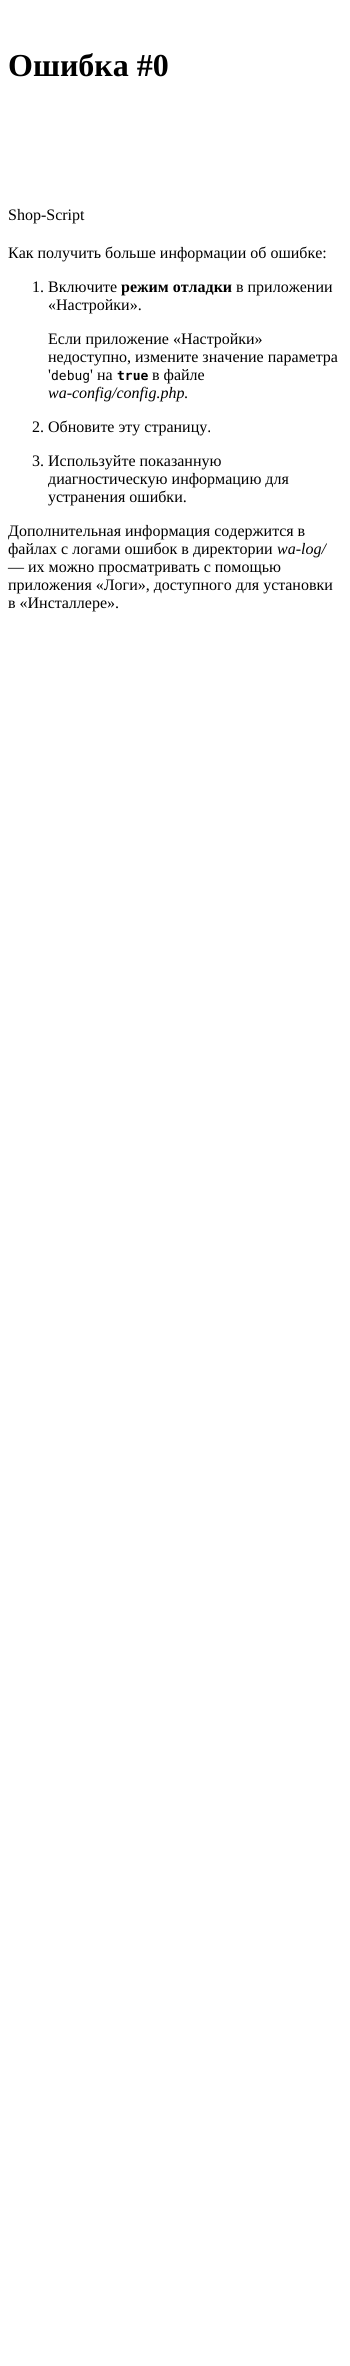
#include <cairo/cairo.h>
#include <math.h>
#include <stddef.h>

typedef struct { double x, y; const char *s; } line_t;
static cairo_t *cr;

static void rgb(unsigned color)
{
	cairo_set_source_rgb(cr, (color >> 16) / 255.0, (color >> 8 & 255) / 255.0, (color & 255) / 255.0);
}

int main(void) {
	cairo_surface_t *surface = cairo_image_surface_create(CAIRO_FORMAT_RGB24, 350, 2366);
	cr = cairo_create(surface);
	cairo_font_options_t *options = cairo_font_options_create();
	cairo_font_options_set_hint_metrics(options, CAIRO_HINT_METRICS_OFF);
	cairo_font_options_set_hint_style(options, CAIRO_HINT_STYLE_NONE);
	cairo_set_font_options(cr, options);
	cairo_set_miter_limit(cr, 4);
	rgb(0xffffff);
	cairo_paint(cr);
	cairo_select_font_face(cr, "Liberation Serif", CAIRO_FONT_SLANT_NORMAL, CAIRO_FONT_WEIGHT_BOLD);
	cairo_set_font_size(cr, 32);
	rgb(0x000000);
	cairo_move_to(cr, 8, 76);
	cairo_show_text(cr, "Ошибка #0");
	cairo_select_font_face(cr, "Liberation Serif", CAIRO_FONT_SLANT_NORMAL, CAIRO_FONT_WEIGHT_NORMAL);
	cairo_set_font_size(cr, 16);
	{
		static const line_t items[] = {
			{8, 220, "Shop-Script"},
			{8, 258, "Как получить больше информации об ошибке:"},
			{32, 292, "1. Включите"},
		};
		for (size_t i = 0; i < sizeof items / sizeof *items; i++) {
			cairo_move_to(cr, items[i].x, items[i].y);
			cairo_show_text(cr, items[i].s);
		}
	}
	cairo_select_font_face(cr, "Liberation Serif", CAIRO_FONT_SLANT_NORMAL, CAIRO_FONT_WEIGHT_BOLD);
	cairo_move_to(cr, 121, 292);
	cairo_show_text(cr, "режим отладки");
	cairo_select_font_face(cr, "Liberation Serif", CAIRO_FONT_SLANT_NORMAL, CAIRO_FONT_WEIGHT_NORMAL);
	{
		static const line_t items[] = {
			{236, 292, "в приложении"},
			{48, 310, "«Настройки»."},
			{48, 344, "Если приложение «Настройки»"},
			{48, 362, "недоступно, измените значение параметра"},
			{48, 380, "'"},
		};
		for (size_t i = 0; i < sizeof items / sizeof *items; i++) {
			cairo_move_to(cr, items[i].x, items[i].y);
			cairo_show_text(cr, items[i].s);
		}
	}
	cairo_select_font_face(cr, "DejaVu Sans Mono", CAIRO_FONT_SLANT_NORMAL, CAIRO_FONT_WEIGHT_NORMAL);
	cairo_set_font_size(cr, 13);
	cairo_move_to(cr, 51, 380);
	cairo_show_text(cr, "debug");
	cairo_select_font_face(cr, "Liberation Serif", CAIRO_FONT_SLANT_NORMAL, CAIRO_FONT_WEIGHT_NORMAL);
	cairo_set_font_size(cr, 16);
	cairo_move_to(cr, 90, 380);
	cairo_show_text(cr, "' на");
	cairo_select_font_face(cr, "DejaVu Sans Mono", CAIRO_FONT_SLANT_NORMAL, CAIRO_FONT_WEIGHT_BOLD);
	cairo_set_font_size(cr, 13);
	cairo_move_to(cr, 117, 380);
	cairo_show_text(cr, "true");
	cairo_select_font_face(cr, "Liberation Serif", CAIRO_FONT_SLANT_NORMAL, CAIRO_FONT_WEIGHT_NORMAL);
	cairo_set_font_size(cr, 16);
	cairo_move_to(cr, 152, 380);
	cairo_show_text(cr, "в файле");
	cairo_select_font_face(cr, "Liberation Serif", CAIRO_FONT_SLANT_ITALIC, CAIRO_FONT_WEIGHT_NORMAL);
	cairo_move_to(cr, 48, 398);
	cairo_show_text(cr, "wa-config/config.php");
	cairo_select_font_face(cr, "Liberation Serif", CAIRO_FONT_SLANT_NORMAL, CAIRO_FONT_WEIGHT_NORMAL);
	{
		static const line_t items[] = {
			{184, 398, "."},
			{32, 432, "2. Обновите эту страницу."},
			{32, 466, "3. Используйте показанную"},
			{48, 484, "диагностическую информацию для"},
			{48, 502, "устранения ошибки."},
			{8, 536, "Дополнительная информация содержится в"},
			{8, 554, "файлах с логами ошибок в директории"},
		};
		for (size_t i = 0; i < sizeof items / sizeof *items; i++) {
			cairo_move_to(cr, items[i].x, items[i].y);
			cairo_show_text(cr, items[i].s);
		}
	}
	cairo_select_font_face(cr, "Liberation Serif", CAIRO_FONT_SLANT_ITALIC, CAIRO_FONT_WEIGHT_NORMAL);
	cairo_move_to(cr, 277, 554);
	cairo_show_text(cr, "wa-log/");
	cairo_select_font_face(cr, "Liberation Serif", CAIRO_FONT_SLANT_NORMAL, CAIRO_FONT_WEIGHT_NORMAL);
	{
		static const line_t items[] = {
			{8, 572, "— их можно просматривать с помощью"},
			{8, 590, "приложения «Логи», доступного для установки"},
			{8, 608, "в «Инсталлере»."},
		};
		for (size_t i = 0; i < sizeof items / sizeof *items; i++) {
			cairo_move_to(cr, items[i].x, items[i].y);
			cairo_show_text(cr, items[i].s);
		}
	}
	cairo_surface_write_to_png(surface, "page.png");
	cairo_font_options_destroy(options);
	cairo_destroy(cr);
	cairo_surface_destroy(surface);
	return 0;
}
